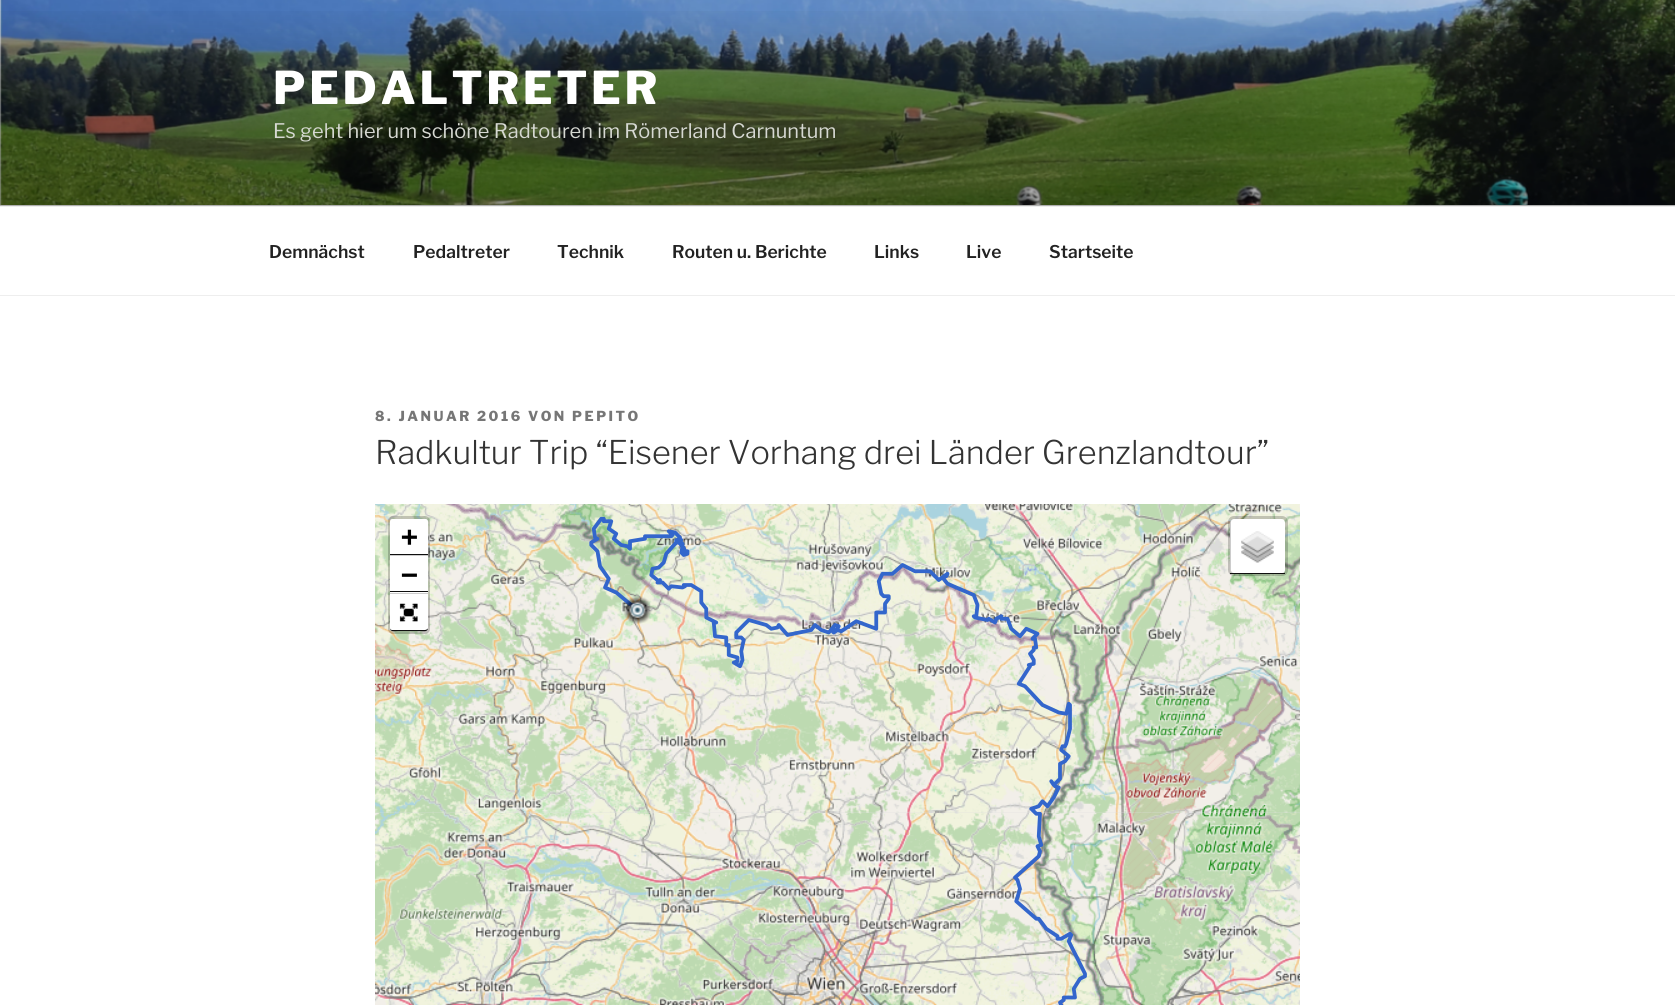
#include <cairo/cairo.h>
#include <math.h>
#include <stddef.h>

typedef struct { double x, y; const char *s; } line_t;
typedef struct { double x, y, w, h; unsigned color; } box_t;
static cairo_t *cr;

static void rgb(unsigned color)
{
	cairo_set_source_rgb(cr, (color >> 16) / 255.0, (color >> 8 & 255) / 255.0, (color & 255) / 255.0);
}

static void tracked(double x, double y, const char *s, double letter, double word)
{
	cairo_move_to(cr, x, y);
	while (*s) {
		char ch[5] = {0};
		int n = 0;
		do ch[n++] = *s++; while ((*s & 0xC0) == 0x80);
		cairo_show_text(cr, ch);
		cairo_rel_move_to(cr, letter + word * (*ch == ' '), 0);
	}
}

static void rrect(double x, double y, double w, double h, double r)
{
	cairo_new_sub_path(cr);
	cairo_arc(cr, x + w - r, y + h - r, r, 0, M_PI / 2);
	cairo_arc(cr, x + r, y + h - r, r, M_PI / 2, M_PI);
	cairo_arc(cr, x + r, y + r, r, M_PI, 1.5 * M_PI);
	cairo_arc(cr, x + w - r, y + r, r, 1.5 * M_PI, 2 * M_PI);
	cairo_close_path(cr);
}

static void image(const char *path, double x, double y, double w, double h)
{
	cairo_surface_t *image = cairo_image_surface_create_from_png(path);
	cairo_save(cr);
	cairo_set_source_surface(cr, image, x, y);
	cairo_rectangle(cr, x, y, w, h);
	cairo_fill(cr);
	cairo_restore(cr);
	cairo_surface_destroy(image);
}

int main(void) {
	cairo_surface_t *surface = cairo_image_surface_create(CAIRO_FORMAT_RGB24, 1675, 1005);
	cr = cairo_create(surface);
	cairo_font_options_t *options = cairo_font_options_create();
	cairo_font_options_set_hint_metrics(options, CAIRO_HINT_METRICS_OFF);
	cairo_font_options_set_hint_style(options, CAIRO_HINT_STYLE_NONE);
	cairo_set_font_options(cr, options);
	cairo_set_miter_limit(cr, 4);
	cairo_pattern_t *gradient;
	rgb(0xffffff);
	cairo_paint(cr);
	rgb(0xfafafa);
	cairo_rectangle(cr, 0, 0, 1675, 206);
	cairo_fill(cr);
	image("img/1.png", 0, 0, 1675, 205);
	gradient = cairo_pattern_create_linear(838, 0, 838, 206);
	cairo_pattern_add_color_stop_rgba(gradient, 0, 0, 0, 0, 0);
	cairo_pattern_add_color_stop_rgba(gradient, 0.75, 0, 0, 0, 0.3);
	cairo_pattern_add_color_stop_rgba(gradient, 1, 0, 0, 0, 0.3);
	cairo_set_source(cr, gradient);
	cairo_pattern_destroy(gradient);
	cairo_rectangle(cr, 0, 11, 1675, 195);
	cairo_fill(cr);
	{
		static const box_t items[] = {
			{0, 206, 1675, 1, 0xeeeeee},
			{0, 295, 1675, 1, 0xeeeeee},
			{375, 812, 925, 1, 0xdddddd},
		};
		for (size_t i = 0; i < sizeof items / sizeof *items; i++) {
			rgb(items[i].color);
			cairo_rectangle(cr, items[i].x, items[i].y, items[i].w, items[i].h);
			cairo_fill(cr);
		}
	}
	image("img/2.png", 375, 504, 40, 309);
	image("img/3.png", 415, 504, 320, 309);
	image("img/4.png", 735, 504, 320, 309);
	image("img/5.png", 1055, 504, 245, 309);
	image("img/6.png", 375, 813, 40, 192);
	image("img/7.png", 415, 813, 320, 192);
	image("img/8.png", 735, 813, 320, 192);
	image("img/9.png", 1055, 813, 245, 192);
	image("img/10.png", 375, 812, 40, 1);
	image("img/11.png", 415, 812, 320, 1);
	image("img/12.png", 737, 812, 316, 1);
	image("img/13.png", 1055, 812, 245, 1);
	image("img/14.png", 589, 516, 498, 489);
	image("img/15.png", 623, 596, 29, 28);
	rrect(389.5, 517.5, 39, 115, 3.5);
	cairo_set_source_rgba(cr, 0, 0, 0, 0.2);
	cairo_set_line_width(cr, 3);
	cairo_stroke(cr);
	rgb(0xffffff);
	cairo_new_path(cr);
	cairo_move_to(cr, 392.5, 519);
	cairo_line_to(cr, 425.5, 519);
	cairo_curve_to(cr, 427, 519, 428, 520, 428, 521.5);
	cairo_line_to(cr, 428, 556);
	cairo_line_to(cr, 390, 556);
	cairo_line_to(cr, 390, 521.5);
	cairo_curve_to(cr, 390, 520, 391, 519, 392.5, 519);
	cairo_close_path(cr);
	cairo_fill(cr);
	{
		static const box_t items[] = {
			{390, 554, 38, 1, 0x0f0f0f},
			{390, 555, 38, 1, 0xcccccc},
			{390, 556, 38, 37, 0xffffff},
			{390, 591, 38, 1, 0x0f0f0f},
			{390, 593, 38, 1, 0xcccccc},
		};
		for (size_t i = 0; i < sizeof items / sizeof *items; i++) {
			rgb(items[i].color);
			cairo_rectangle(cr, items[i].x, items[i].y, items[i].w, items[i].h);
			cairo_fill(cr);
		}
	}
	rgb(0xffffff);
	cairo_new_path(cr);
	cairo_move_to(cr, 390, 594);
	cairo_line_to(cr, 428, 594);
	cairo_line_to(cr, 428, 628.5);
	cairo_curve_to(cr, 428, 630, 427, 631, 425.5, 631);
	cairo_line_to(cr, 392.5, 631);
	cairo_curve_to(cr, 391, 631, 390, 630, 390, 628.5);
	cairo_close_path(cr);
	cairo_fill(cr);
	image("img/16.png", 399, 603, 19, 19);
	rgb(0x0f0f0f);
	cairo_new_path(cr);
	cairo_move_to(cr, 390, 628);
	cairo_curve_to(cr, 390, 632.5, 395, 631, 398, 631);
	cairo_line_to(cr, 420, 631);
	cairo_curve_to(cr, 423, 631, 428, 632.5, 428, 628);
	cairo_curve_to(cr, 428, 629, 426, 630, 425, 630);
	cairo_line_to(cr, 392, 630);
	cairo_curve_to(cr, 391, 630, 390, 629, 390, 628);
	cairo_close_path(cr);
	cairo_fill(cr);
	rgb(0xffffff);
	rrect(1230, 519, 55, 55, 4);
	cairo_fill(cr);
	rrect(1229.5, 517.5, 57, 57, 4.5);
	cairo_set_source_rgba(cr, 0, 0, 0, 0.2);
	cairo_stroke(cr);
	image("img/17.png", 1241, 531, 33, 32);
	rgb(0x0f0f0f);
	cairo_rectangle(cr, 1230, 573, 55, 1);
	cairo_fill(cr);
	cairo_select_font_face(cr, "Libre Franklin Thin", CAIRO_FONT_SLANT_NORMAL, CAIRO_FONT_WEIGHT_NORMAL);
	cairo_set_font_size(cr, 45);
	rgb(0xffffff);
	tracked(273, 104, "PEDALTRETER", 3.6, 0);
	cairo_select_font_face(cr, "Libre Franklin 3 Thin", CAIRO_FONT_SLANT_NORMAL, CAIRO_FONT_WEIGHT_NORMAL);
	cairo_set_font_size(cr, 20);
	rgb(0xd6d8d2);
	cairo_move_to(cr, 273, 138);
	cairo_show_text(cr, "Es geht hier um schöne Radtouren im Römerland Carnuntum");
	cairo_select_font_face(cr, "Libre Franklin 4 Thin", CAIRO_FONT_SLANT_NORMAL, CAIRO_FONT_WEIGHT_NORMAL);
	cairo_set_font_size(cr, 17.5);
	rgb(0x222222);
	{
		static const line_t items[] = {
			{269, 258, "Demnächst"},
			{413, 258, "Pedaltreter"},
			{557, 258, "Technik"},
			{672, 258, "Routen u. Berichte"},
			{874, 258, "Links"},
			{966, 258, "Live"},
			{1049, 258, "Startseite"},
		};
		for (size_t i = 0; i < sizeof items / sizeof *items; i++) {
			cairo_move_to(cr, items[i].x, items[i].y);
			cairo_show_text(cr, items[i].s);
		}
	}
	cairo_select_font_face(cr, "Libre Franklin Thin", CAIRO_FONT_SLANT_NORMAL, CAIRO_FONT_WEIGHT_NORMAL);
	cairo_set_font_size(cr, 13.75);
	rgb(0x767676);
	tracked(375, 421, "8. JANUAR 2016 VON PEPITO", 2.5, 0);
	cairo_select_font_face(cr, "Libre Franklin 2 Thin", CAIRO_FONT_SLANT_NORMAL, CAIRO_FONT_WEIGHT_NORMAL);
	cairo_set_font_size(cr, 32.5);
	rgb(0x333333);
	cairo_move_to(cr, 375, 464);
	cairo_show_text(cr, "Radkultur Trip “Eisener Vorhang drei Länder Grenzlandtour”");
	cairo_select_font_face(cr, "DejaVu Sans Mono", CAIRO_FONT_SLANT_NORMAL, CAIRO_FONT_WEIGHT_BOLD);
	cairo_set_font_size(cr, 28);
	rgb(0x000000);
	cairo_move_to(cr, 401, 546);
	cairo_show_text(cr, "+");
	cairo_move_to(cr, 401, 584);
	cairo_show_text(cr, "−");
	cairo_surface_write_to_png(surface, "page.png");
	cairo_font_options_destroy(options);
	cairo_destroy(cr);
	cairo_surface_destroy(surface);
	return 0;
}
